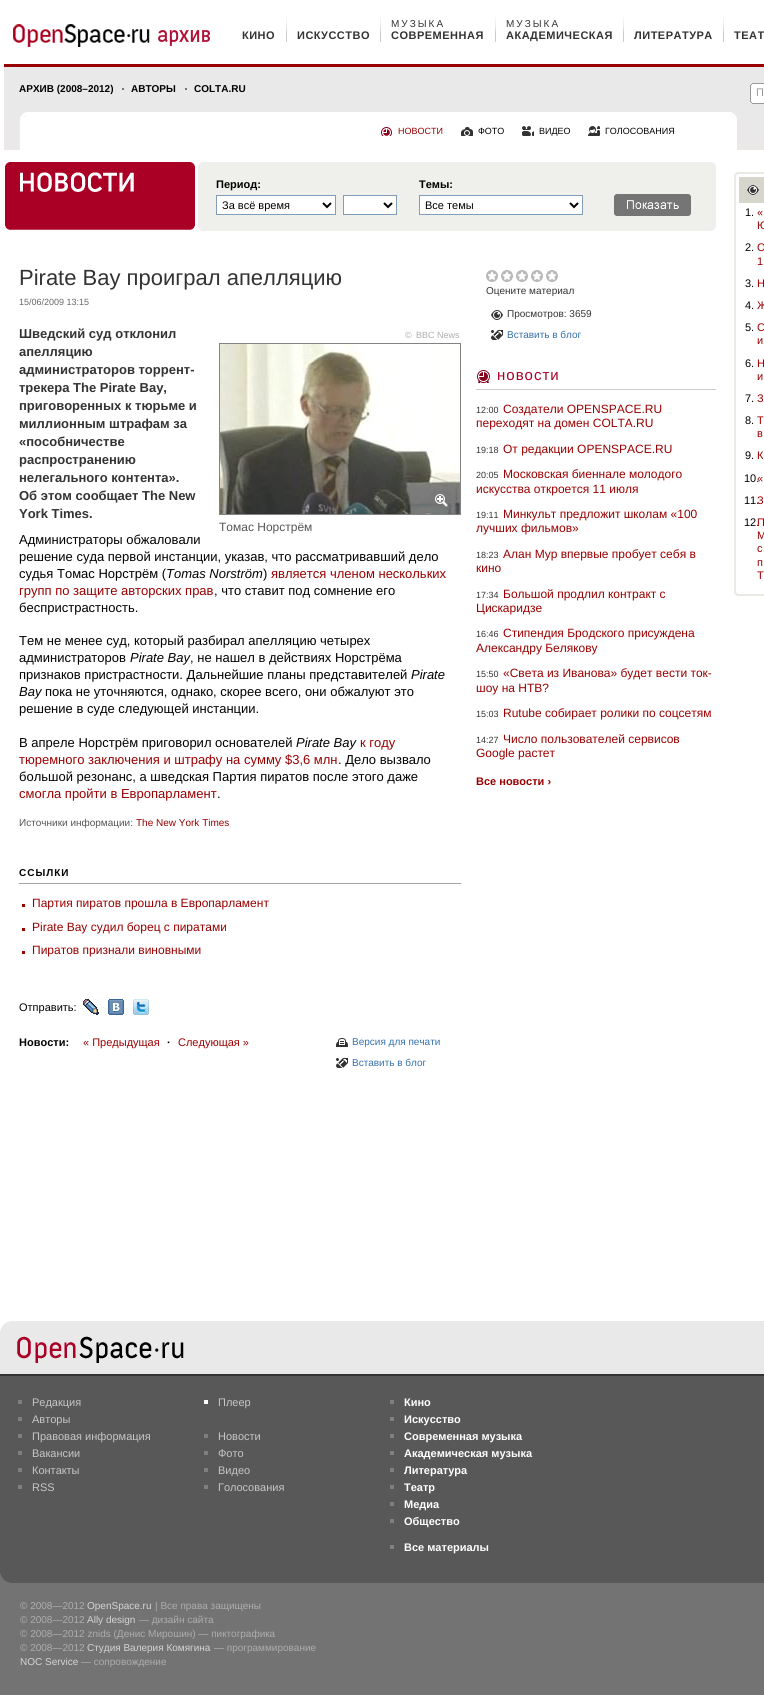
#include <cairo/cairo.h>
#include <math.h>
#include <stddef.h>

typedef struct { double x, y; const char *s; } line_t;
typedef struct { double x, y, w, h; unsigned color; } box_t;
static cairo_t *cr;

static void rgb(unsigned color)
{
	cairo_set_source_rgb(cr, (color >> 16) / 255.0, (color >> 8 & 255) / 255.0, (color & 255) / 255.0);
}

static void tracked(double x, double y, const char *s, double letter, double word)
{
	cairo_move_to(cr, x, y);
	while (*s) {
		char ch[5] = {0};
		int n = 0;
		do ch[n++] = *s++; while ((*s & 0xC0) == 0x80);
		cairo_show_text(cr, ch);
		cairo_rel_move_to(cr, letter + word * (*ch == ' '), 0);
	}
}

static void image(const char *path, double x, double y, double w, double h)
{
	cairo_surface_t *image = cairo_image_surface_create_from_png(path);
	cairo_save(cr);
	cairo_set_source_surface(cr, image, x, y);
	cairo_rectangle(cr, x, y, w, h);
	cairo_fill(cr);
	cairo_restore(cr);
	cairo_surface_destroy(image);
}

int main(void) {
	cairo_surface_t *surface = cairo_image_surface_create(CAIRO_FORMAT_RGB24, 764, 1695);
	cr = cairo_create(surface);
	cairo_font_options_t *options = cairo_font_options_create();
	cairo_font_options_set_hint_metrics(options, CAIRO_HINT_METRICS_OFF);
	cairo_font_options_set_hint_style(options, CAIRO_HINT_STYLE_NONE);
	cairo_set_font_options(cr, options);
	cairo_set_miter_limit(cr, 4);
	rgb(0xffffff);
	cairo_paint(cr);
	image("img/1.png", 13, 24, 197, 23);
	image("img/2.png", 286, 17, 1, 25);
	image("img/2.png", 380, 17, 1, 25);
	image("img/2.png", 495, 17, 1, 25);
	image("img/2.png", 623, 17, 1, 25);
	image("img/2.png", 723, 17, 1, 25);
	rgb(0x990000);
	cairo_rectangle(cr, 4, 64, 760, 3);
	cairo_fill(cr);
	image("img/3.png", 4, 67, 760, 83);
	rgb(0x747474);
	cairo_rectangle(cr, 122, 88, 2, 2);
	cairo_fill(cr);
	cairo_rectangle(cr, 185, 88, 2, 2);
	cairo_fill(cr);
	image("img/4.png", 750, 83, 14, 21);
	image("img/5.png", 381, 127, 11, 9);
	image("img/6.png", 461, 127, 12, 9);
	image("img/7.png", 522, 126, 12, 10);
	image("img/8.png", 588, 126, 12, 10);
	image("img/9.png", 5, 162, 190, 68);
	image("img/10.png", 198, 162, 518, 4);
	rgb(0xefefeb);
	cairo_rectangle(cr, 198, 166, 518, 61);
	cairo_fill(cr);
	image("img/11.png", 198, 227, 518, 4);
	rgb(0xffffff);
	cairo_rectangle(cr, 216.5, 195.5, 119, 19);
	cairo_fill_preserve(cr);
	rgb(0x809db9);
	cairo_set_line_width(cr, 1);
	cairo_stroke(cr);
	cairo_new_path(cr);
	cairo_move_to(cr, 323, 203);
	cairo_line_to(cr, 327, 207);
	cairo_line_to(cr, 331, 203);
	rgb(0x000000);
	cairo_set_line_width(cr, 2);
	cairo_stroke(cr);
	rgb(0xffffff);
	cairo_rectangle(cr, 343.5, 195.5, 53, 19);
	cairo_fill_preserve(cr);
	rgb(0x809db9);
	cairo_set_line_width(cr, 1);
	cairo_stroke(cr);
	cairo_new_path(cr);
	cairo_move_to(cr, 384, 203);
	cairo_line_to(cr, 388, 207);
	cairo_line_to(cr, 392, 203);
	rgb(0x000000);
	cairo_set_line_width(cr, 2);
	cairo_stroke(cr);
	rgb(0xffffff);
	cairo_rectangle(cr, 419.5, 195.5, 163, 19);
	cairo_fill_preserve(cr);
	rgb(0x809db9);
	cairo_set_line_width(cr, 1);
	cairo_stroke(cr);
	cairo_new_path(cr);
	cairo_move_to(cr, 570, 203);
	cairo_line_to(cr, 574, 207);
	cairo_line_to(cr, 578, 203);
	rgb(0x000000);
	cairo_set_line_width(cr, 2);
	cairo_stroke(cr);
	image("img/12.png", 614, 194, 77, 22);
	cairo_rectangle(cr, 219.5, 343.5, 241, 171);
	rgb(0x838383);
	cairo_set_line_width(cr, 1);
	cairo_stroke(cr);
	image("img/13.png", 220, 344, 240, 170);
	image("img/14.png", 431, 490, 20, 20);
	{
		static const box_t items[] = {
			{19, 883, 442, 1, 0xa5a5a5},
			{22, 904, 3, 3, 0x990000},
			{22, 928, 3, 3, 0x990000},
			{22, 951, 3, 3, 0x990000},
		};
		for (size_t i = 0; i < sizeof items / sizeof *items; i++) {
			rgb(items[i].color);
			cairo_rectangle(cr, items[i].x, items[i].y, items[i].w, items[i].h);
			cairo_fill(cr);
		}
	}
	image("img/15.png", 83, 999, 16, 16);
	image("img/16.png", 108, 999, 16, 16);
	image("img/17.png", 133, 999, 16, 16);
	image("img/18.png", 336, 1038, 12, 9);
	image("img/19.png", 336, 1058, 12, 10);
	rgb(0xb9b9b9);
	cairo_rectangle(cr, 486, 270, 72, 12);
	cairo_fill(cr);
	image("img/20.png", 486, 270, 15, 12);
	image("img/20.png", 501, 270, 15, 12);
	image("img/20.png", 516, 270, 15, 12);
	image("img/20.png", 531, 270, 15, 12);
	image("img/20.png", 546, 270, 15, 12);
	image("img/21.png", 491, 310, 12, 10);
	image("img/19.png", 491, 330, 12, 10);
	rgb(0xcccccc);
	cairo_rectangle(cr, 476, 389, 240, 1);
	cairo_fill(cr);
	image("img/22.png", 477, 370, 13, 13);
	image("img/23.png", 734, 172, 30, 5);
	image("img/24.png", 734, 177, 30, 419);
	image("img/25.png", 739, 177, 25, 26);
	rgb(0xe9e9e9);
	cairo_rectangle(cr, 0, 1321, 764, 53);
	cairo_fill(cr);
	image("img/26.png", 0, 1321, 11, 10);
	image("img/27.png", 17, 1336, 167, 27);
	rgb(0x737373);
	cairo_rectangle(cr, 0, 1583, 764, 112);
	cairo_fill(cr);
	rgb(0x585858);
	cairo_rectangle(cr, 0, 1376, 764, 207);
	cairo_fill(cr);
	image("img/28.png", 0, 1573, 11, 10);
	{
		static const box_t items[] = {
			{0, 1374, 764, 2, 0x333333},
			{18, 1400, 4, 4, 0x7f7f7f},
			{18, 1417, 4, 4, 0x7f7f7f},
			{18, 1434, 4, 4, 0x7f7f7f},
			{18, 1451, 4, 4, 0x7f7f7f},
			{18, 1468, 4, 4, 0x7f7f7f},
			{18, 1485, 4, 4, 0x7f7f7f},
			{204, 1400, 4, 4, 0xffffff},
			{204, 1434, 4, 4, 0x7f7f7f},
			{204, 1451, 4, 4, 0x7f7f7f},
			{204, 1468, 4, 4, 0x7f7f7f},
			{204, 1485, 4, 4, 0x7f7f7f},
			{390, 1400, 4, 4, 0x7f7f7f},
			{390, 1417, 4, 4, 0x7f7f7f},
			{390, 1434, 4, 4, 0x7f7f7f},
			{390, 1451, 4, 4, 0x7f7f7f},
			{390, 1468, 4, 4, 0x7f7f7f},
			{390, 1485, 4, 4, 0x7f7f7f},
			{390, 1502, 4, 4, 0x7f7f7f},
			{390, 1519, 4, 4, 0x7f7f7f},
			{390, 1545, 4, 4, 0x7f7f7f},
		};
		for (size_t i = 0; i < sizeof items / sizeof *items; i++) {
			rgb(items[i].color);
			cairo_rectangle(cr, items[i].x, items[i].y, items[i].w, items[i].h);
			cairo_fill(cr);
		}
	}
	cairo_select_font_face(cr, "Liberation Sans", CAIRO_FONT_SLANT_NORMAL, CAIRO_FONT_WEIGHT_BOLD);
	cairo_set_font_size(cr, 11);
	rgb(0x333333);
	tracked(242, 39, "КИНО", 0.5, 0);
	tracked(297, 39, "ИСКУССТВО", 0.5, 0);
	cairo_select_font_face(cr, "Liberation Sans", CAIRO_FONT_SLANT_NORMAL, CAIRO_FONT_WEIGHT_NORMAL);
	cairo_set_font_size(cr, 10);
	tracked(391, 27, "МУЗЫКА", 2, 0);
	cairo_select_font_face(cr, "Liberation Sans", CAIRO_FONT_SLANT_NORMAL, CAIRO_FONT_WEIGHT_BOLD);
	cairo_set_font_size(cr, 11);
	tracked(391, 39, "СОВРЕМЕННАЯ", 0.5, 0);
	cairo_select_font_face(cr, "Liberation Sans", CAIRO_FONT_SLANT_NORMAL, CAIRO_FONT_WEIGHT_NORMAL);
	cairo_set_font_size(cr, 10);
	tracked(506, 27, "МУЗЫКА", 2, 0);
	cairo_select_font_face(cr, "Liberation Sans", CAIRO_FONT_SLANT_NORMAL, CAIRO_FONT_WEIGHT_BOLD);
	cairo_set_font_size(cr, 11);
	{
		static const line_t items[] = {
			{506, 39, "АКАДЕМИЧЕСКАЯ"},
			{634, 39, "ЛИТЕРАТУРА"},
			{734, 39, "ТЕАТ"},
		};
		for (size_t i = 0; i < sizeof items / sizeof *items; i++) {
			tracked(items[i].x, items[i].y, items[i].s, 0.5, 0);
		}
	}
	cairo_set_font_size(cr, 10);
	rgb(0x000000);
	{
		static const line_t items[] = {
			{19, 92, "АРХИВ (2008–2012)"},
			{131, 92, "АВТОРЫ"},
			{194, 92, "COLTA.RU"},
		};
		for (size_t i = 0; i < sizeof items / sizeof *items; i++) {
			cairo_move_to(cr, items[i].x, items[i].y);
			cairo_show_text(cr, items[i].s);
		}
	}
	cairo_select_font_face(cr, "Liberation Sans", CAIRO_FONT_SLANT_NORMAL, CAIRO_FONT_WEIGHT_NORMAL);
	cairo_set_font_size(cr, 11);
	rgb(0x999999);
	cairo_move_to(cr, 756, 96);
	cairo_show_text(cr, "П");
	cairo_set_font_size(cr, 9);
	rgb(0x990000);
	cairo_move_to(cr, 398, 134);
	cairo_show_text(cr, "НОВОСТИ");
	rgb(0x000000);
	{
		static const line_t items[] = {
			{478, 134, "ФОТО"},
			{539, 134, "ВИДЕО"},
			{605, 134, "ГОЛОСОВАНИЯ"},
		};
		for (size_t i = 0; i < sizeof items / sizeof *items; i++) {
			cairo_move_to(cr, items[i].x, items[i].y);
			cairo_show_text(cr, items[i].s);
		}
	}
	cairo_select_font_face(cr, "Liberation Sans", CAIRO_FONT_SLANT_NORMAL, CAIRO_FONT_WEIGHT_BOLD);
	cairo_set_font_size(cr, 11);
	cairo_move_to(cr, 216, 188);
	cairo_show_text(cr, "Период:");
	cairo_select_font_face(cr, "Liberation Sans", CAIRO_FONT_SLANT_NORMAL, CAIRO_FONT_WEIGHT_NORMAL);
	cairo_move_to(cr, 222, 209);
	cairo_show_text(cr, "За всё время");
	cairo_select_font_face(cr, "Liberation Sans", CAIRO_FONT_SLANT_NORMAL, CAIRO_FONT_WEIGHT_BOLD);
	cairo_move_to(cr, 419, 188);
	cairo_show_text(cr, "Темы:");
	cairo_select_font_face(cr, "Liberation Sans", CAIRO_FONT_SLANT_NORMAL, CAIRO_FONT_WEIGHT_NORMAL);
	cairo_move_to(cr, 425, 209);
	cairo_show_text(cr, "Все темы");
	cairo_set_font_size(cr, 22);
	rgb(0x333333);
	cairo_move_to(cr, 19, 285);
	cairo_show_text(cr, "Pirate Bay проиграл апелляцию");
	cairo_set_font_size(cr, 9);
	rgb(0x666666);
	cairo_move_to(cr, 19, 305);
	cairo_show_text(cr, "15/06/2009 13:15");
	cairo_select_font_face(cr, "Liberation Sans", CAIRO_FONT_SLANT_NORMAL, CAIRO_FONT_WEIGHT_BOLD);
	cairo_set_font_size(cr, 13);
	rgb(0x333333);
	{
		static const line_t items[] = {
			{19, 338, "Шведский суд отклонил"},
			{19, 356, "апелляцию"},
			{19, 374, "администраторов торрент-"},
			{19, 392, "трекера The Pirate Bay,"},
			{19, 410, "приговоренных к тюрьме и"},
			{19, 428, "миллионным штрафам за"},
			{19, 446, "«пособничестве"},
			{19, 464, "распространению"},
			{19, 482, "нелегального контента»."},
			{19, 500, "Об этом сообщает The New"},
			{19, 518, "York Times."},
		};
		for (size_t i = 0; i < sizeof items / sizeof *items; i++) {
			cairo_move_to(cr, items[i].x, items[i].y);
			cairo_show_text(cr, items[i].s);
		}
	}
	cairo_select_font_face(cr, "Liberation Sans", CAIRO_FONT_SLANT_NORMAL, CAIRO_FONT_WEIGHT_NORMAL);
	cairo_set_font_size(cr, 9);
	rgb(0xadadad);
	cairo_move_to(cr, 405, 338);
	cairo_show_text(cr, "©");
	cairo_move_to(cr, 416, 338);
	cairo_show_text(cr, "BBC News");
	cairo_set_font_size(cr, 12);
	rgb(0x555555);
	cairo_move_to(cr, 219, 531);
	cairo_show_text(cr, "Томас Норстрём");
	cairo_set_font_size(cr, 13);
	rgb(0x000000);
	{
		static const line_t items[] = {
			{19, 544, "Администраторы обжаловали"},
			{19, 561, "решение суда первой инстанции, указав, что рассматривавший дело"},
			{19, 578, "судья Томас Норстрём ("},
		};
		for (size_t i = 0; i < sizeof items / sizeof *items; i++) {
			cairo_move_to(cr, items[i].x, items[i].y);
			cairo_show_text(cr, items[i].s);
		}
	}
	cairo_select_font_face(cr, "Liberation Sans", CAIRO_FONT_SLANT_ITALIC, CAIRO_FONT_WEIGHT_NORMAL);
	cairo_move_to(cr, 166, 578);
	cairo_show_text(cr, "Tomas Norström");
	cairo_select_font_face(cr, "Liberation Sans", CAIRO_FONT_SLANT_NORMAL, CAIRO_FONT_WEIGHT_NORMAL);
	cairo_move_to(cr, 263, 578);
	cairo_show_text(cr, ")");
	rgb(0x990000);
	cairo_move_to(cr, 271, 578);
	cairo_show_text(cr, "является членом нескольких");
	cairo_move_to(cr, 19, 595);
	cairo_show_text(cr, "групп по защите авторских прав");
	rgb(0x000000);
	{
		static const line_t items[] = {
			{214, 595, ", что ставит под сомнение его"},
			{19, 612, "беспристрастность."},
			{19, 645, "Тем не менее суд, который разбирал апелляцию четырех"},
			{19, 662, "администраторов"},
		};
		for (size_t i = 0; i < sizeof items / sizeof *items; i++) {
			cairo_move_to(cr, items[i].x, items[i].y);
			cairo_show_text(cr, items[i].s);
		}
	}
	cairo_select_font_face(cr, "Liberation Sans", CAIRO_FONT_SLANT_ITALIC, CAIRO_FONT_WEIGHT_NORMAL);
	cairo_move_to(cr, 130, 662);
	cairo_show_text(cr, "Pirate Bay");
	cairo_select_font_face(cr, "Liberation Sans", CAIRO_FONT_SLANT_NORMAL, CAIRO_FONT_WEIGHT_NORMAL);
	cairo_move_to(cr, 190, 662);
	cairo_show_text(cr, ", не нашел в действиях Норстрёма");
	cairo_move_to(cr, 19, 679);
	cairo_show_text(cr, "признаков пристрастности. Дальнейшие планы представителей");
	cairo_select_font_face(cr, "Liberation Sans", CAIRO_FONT_SLANT_ITALIC, CAIRO_FONT_WEIGHT_NORMAL);
	cairo_move_to(cr, 411, 679);
	cairo_show_text(cr, "Pirate");
	cairo_move_to(cr, 19, 696);
	cairo_show_text(cr, "Bay");
	cairo_select_font_face(cr, "Liberation Sans", CAIRO_FONT_SLANT_NORMAL, CAIRO_FONT_WEIGHT_NORMAL);
	{
		static const line_t items[] = {
			{45, 696, "пока не уточняются, однако, скорее всего, они обжалуют это"},
			{19, 713, "решение в суде следующей инстанции."},
			{19, 747, "В апреле Норстрём приговорил основателей"},
		};
		for (size_t i = 0; i < sizeof items / sizeof *items; i++) {
			cairo_move_to(cr, items[i].x, items[i].y);
			cairo_show_text(cr, items[i].s);
		}
	}
	cairo_select_font_face(cr, "Liberation Sans", CAIRO_FONT_SLANT_ITALIC, CAIRO_FONT_WEIGHT_NORMAL);
	cairo_move_to(cr, 296, 747);
	cairo_show_text(cr, "Pirate Bay");
	cairo_select_font_face(cr, "Liberation Sans", CAIRO_FONT_SLANT_NORMAL, CAIRO_FONT_WEIGHT_NORMAL);
	rgb(0x990000);
	cairo_move_to(cr, 360, 747);
	cairo_show_text(cr, "к году");
	cairo_move_to(cr, 19, 764);
	cairo_show_text(cr, "тюремного заключения и штрафу на сумму $3,6 млн");
	rgb(0x000000);
	cairo_move_to(cr, 338, 764);
	cairo_show_text(cr, ". Дело вызвало");
	cairo_move_to(cr, 19, 781);
	cairo_show_text(cr, "большой резонанс, а шведская Партия пиратов после этого даже");
	rgb(0x990000);
	cairo_move_to(cr, 19, 798);
	cairo_show_text(cr, "смогла пройти в Европарламент");
	rgb(0x000000);
	cairo_move_to(cr, 217, 798);
	cairo_show_text(cr, ".");
	cairo_set_font_size(cr, 10);
	rgb(0x555555);
	cairo_move_to(cr, 19, 826);
	cairo_show_text(cr, "Источники информации:");
	rgb(0x990000);
	cairo_move_to(cr, 136, 826);
	cairo_show_text(cr, "The New York Times");
	cairo_select_font_face(cr, "Liberation Sans", CAIRO_FONT_SLANT_NORMAL, CAIRO_FONT_WEIGHT_BOLD);
	rgb(0x000000);
	tracked(19, 876, "ССЫЛКИ", 1, 0);
	cairo_select_font_face(cr, "Liberation Sans", CAIRO_FONT_SLANT_NORMAL, CAIRO_FONT_WEIGHT_NORMAL);
	cairo_set_font_size(cr, 12);
	rgb(0x990000);
	{
		static const line_t items[] = {
			{32, 907, "Партия пиратов прошла в Европарламент"},
			{32, 931, "Pirate Bay судил борец с пиратами"},
			{32, 954, "Пиратов признали виновными"},
		};
		for (size_t i = 0; i < sizeof items / sizeof *items; i++) {
			cairo_move_to(cr, items[i].x, items[i].y);
			cairo_show_text(cr, items[i].s);
		}
	}
	cairo_set_font_size(cr, 11);
	rgb(0x000000);
	cairo_move_to(cr, 19, 1011);
	cairo_show_text(cr, "Отправить:");
	cairo_select_font_face(cr, "Liberation Sans", CAIRO_FONT_SLANT_NORMAL, CAIRO_FONT_WEIGHT_BOLD);
	cairo_move_to(cr, 19, 1046);
	cairo_show_text(cr, "Новости:");
	cairo_select_font_face(cr, "Liberation Sans", CAIRO_FONT_SLANT_NORMAL, CAIRO_FONT_WEIGHT_NORMAL);
	rgb(0x990000);
	cairo_move_to(cr, 83, 1046);
	cairo_show_text(cr, "« Предыдущая");
	cairo_select_font_face(cr, "Liberation Sans", CAIRO_FONT_SLANT_NORMAL, CAIRO_FONT_WEIGHT_BOLD);
	rgb(0x000000);
	cairo_move_to(cr, 167, 1046);
	cairo_show_text(cr, "·");
	cairo_select_font_face(cr, "Liberation Sans", CAIRO_FONT_SLANT_NORMAL, CAIRO_FONT_WEIGHT_NORMAL);
	rgb(0x990000);
	cairo_move_to(cr, 178, 1046);
	cairo_show_text(cr, "Следующая »");
	cairo_set_font_size(cr, 10);
	rgb(0x3471ad);
	cairo_move_to(cr, 352, 1045);
	cairo_show_text(cr, "Версия для печати");
	cairo_move_to(cr, 352, 1066);
	cairo_show_text(cr, "Вставить в блог");
	rgb(0x333333);
	cairo_move_to(cr, 486, 294);
	cairo_show_text(cr, "Оцените материал");
	cairo_move_to(cr, 507, 317);
	cairo_show_text(cr, "Просмотров: 3659");
	rgb(0x3471ad);
	cairo_move_to(cr, 507, 338);
	cairo_show_text(cr, "Вставить в блог");
	cairo_set_font_size(cr, 15);
	rgb(0xaa0026);
	tracked(497, 380, "новости", 1, 0);
	cairo_set_font_size(cr, 9);
	rgb(0x333333);
	cairo_move_to(cr, 476, 413);
	cairo_show_text(cr, "12:00");
	cairo_set_font_size(cr, 12);
	rgb(0x990000);
	cairo_move_to(cr, 503, 413);
	cairo_show_text(cr, "Создатели OPENSPACE.RU");
	cairo_move_to(cr, 476, 427);
	cairo_show_text(cr, "переходят на домен COLTA.RU");
	cairo_set_font_size(cr, 9);
	rgb(0x333333);
	cairo_move_to(cr, 476, 453);
	cairo_show_text(cr, "19:18");
	cairo_set_font_size(cr, 12);
	rgb(0x990000);
	cairo_move_to(cr, 503, 453);
	cairo_show_text(cr, "От редакции OPENSPACE.RU");
	cairo_set_font_size(cr, 9);
	rgb(0x333333);
	cairo_move_to(cr, 476, 478);
	cairo_show_text(cr, "20:05");
	cairo_set_font_size(cr, 12);
	rgb(0x990000);
	cairo_move_to(cr, 503, 478);
	cairo_show_text(cr, "Московская биеннале молодого");
	cairo_move_to(cr, 476, 493);
	cairo_show_text(cr, "искусства откроется 11 июля");
	cairo_set_font_size(cr, 9);
	rgb(0x333333);
	cairo_move_to(cr, 476, 518);
	cairo_show_text(cr, "19:11");
	cairo_set_font_size(cr, 12);
	rgb(0x990000);
	cairo_move_to(cr, 503, 518);
	cairo_show_text(cr, "Минкульт предложит школам «100");
	cairo_move_to(cr, 476, 532);
	cairo_show_text(cr, "лучших фильмов»");
	cairo_set_font_size(cr, 9);
	rgb(0x333333);
	cairo_move_to(cr, 476, 558);
	cairo_show_text(cr, "18:23");
	cairo_set_font_size(cr, 12);
	rgb(0x990000);
	cairo_move_to(cr, 503, 558);
	cairo_show_text(cr, "Алан Мур впервые пробует себя в");
	cairo_move_to(cr, 476, 572);
	cairo_show_text(cr, "кино");
	cairo_set_font_size(cr, 9);
	rgb(0x333333);
	cairo_move_to(cr, 476, 598);
	cairo_show_text(cr, "17:34");
	cairo_set_font_size(cr, 12);
	rgb(0x990000);
	cairo_move_to(cr, 503, 598);
	cairo_show_text(cr, "Большой продлил контракт с");
	cairo_move_to(cr, 476, 612);
	cairo_show_text(cr, "Цискаридзе");
	cairo_set_font_size(cr, 9);
	rgb(0x333333);
	cairo_move_to(cr, 476, 637);
	cairo_show_text(cr, "16:46");
	cairo_set_font_size(cr, 12);
	rgb(0x990000);
	cairo_move_to(cr, 503, 637);
	cairo_show_text(cr, "Стипендия Бродского присуждена");
	cairo_move_to(cr, 476, 652);
	cairo_show_text(cr, "Александру Белякову");
	cairo_set_font_size(cr, 9);
	rgb(0x333333);
	cairo_move_to(cr, 476, 677);
	cairo_show_text(cr, "15:50");
	cairo_set_font_size(cr, 12);
	rgb(0x990000);
	cairo_move_to(cr, 503, 677);
	cairo_show_text(cr, "«Света из Иванова» будет вести ток-");
	cairo_move_to(cr, 476, 692);
	cairo_show_text(cr, "шоу на НТВ?");
	cairo_set_font_size(cr, 9);
	rgb(0x333333);
	cairo_move_to(cr, 476, 717);
	cairo_show_text(cr, "15:03");
	cairo_set_font_size(cr, 12);
	rgb(0x990000);
	cairo_move_to(cr, 503, 717);
	cairo_show_text(cr, "Rutube собирает ролики по соцсетям");
	cairo_set_font_size(cr, 9);
	rgb(0x333333);
	cairo_move_to(cr, 476, 743);
	cairo_show_text(cr, "14:27");
	cairo_set_font_size(cr, 12);
	rgb(0x990000);
	cairo_move_to(cr, 503, 743);
	cairo_show_text(cr, "Число пользователей сервисов");
	cairo_move_to(cr, 476, 757);
	cairo_show_text(cr, "Google растет");
	cairo_select_font_face(cr, "Liberation Sans", CAIRO_FONT_SLANT_NORMAL, CAIRO_FONT_WEIGHT_BOLD);
	cairo_set_font_size(cr, 11);
	cairo_move_to(cr, 476, 785);
	cairo_show_text(cr, "Все новости ›");
	cairo_select_font_face(cr, "Liberation Sans", CAIRO_FONT_SLANT_NORMAL, CAIRO_FONT_WEIGHT_NORMAL);
	rgb(0x000000);
	cairo_move_to(cr, 745, 216);
	cairo_show_text(cr, "1.");
	rgb(0x990000);
	cairo_move_to(cr, 757, 216);
	cairo_show_text(cr, "«");
	cairo_move_to(cr, 757, 229);
	cairo_show_text(cr, "Ю");
	rgb(0x000000);
	cairo_move_to(cr, 745, 251);
	cairo_show_text(cr, "2.");
	rgb(0x990000);
	cairo_move_to(cr, 757, 251);
	cairo_show_text(cr, "О");
	cairo_move_to(cr, 757, 265);
	cairo_show_text(cr, "1");
	rgb(0x000000);
	cairo_move_to(cr, 745, 287);
	cairo_show_text(cr, "3.");
	rgb(0x990000);
	cairo_move_to(cr, 757, 287);
	cairo_show_text(cr, "Н");
	rgb(0x000000);
	cairo_move_to(cr, 745, 309);
	cairo_show_text(cr, "4.");
	rgb(0x990000);
	cairo_move_to(cr, 757, 309);
	cairo_show_text(cr, "Ж");
	rgb(0x000000);
	cairo_move_to(cr, 745, 331);
	cairo_show_text(cr, "5.");
	rgb(0x990000);
	cairo_move_to(cr, 757, 331);
	cairo_show_text(cr, "С");
	cairo_move_to(cr, 757, 344);
	cairo_show_text(cr, "и");
	rgb(0x000000);
	cairo_move_to(cr, 745, 367);
	cairo_show_text(cr, "6.");
	rgb(0x990000);
	cairo_move_to(cr, 757, 367);
	cairo_show_text(cr, "Н");
	cairo_move_to(cr, 757, 380);
	cairo_show_text(cr, "и");
	rgb(0x000000);
	cairo_move_to(cr, 745, 402);
	cairo_show_text(cr, "7.");
	rgb(0x990000);
	cairo_move_to(cr, 757, 402);
	cairo_show_text(cr, "З");
	rgb(0x000000);
	cairo_move_to(cr, 745, 424);
	cairo_show_text(cr, "8.");
	rgb(0x990000);
	cairo_move_to(cr, 757, 424);
	cairo_show_text(cr, "Т");
	cairo_move_to(cr, 757, 437);
	cairo_show_text(cr, "в");
	rgb(0x000000);
	cairo_move_to(cr, 745, 459);
	cairo_show_text(cr, "9.");
	rgb(0x990000);
	cairo_move_to(cr, 757, 459);
	cairo_show_text(cr, "К");
	rgb(0x000000);
	cairo_move_to(cr, 744, 482);
	cairo_show_text(cr, "10.");
	rgb(0x990000);
	cairo_move_to(cr, 757, 482);
	cairo_show_text(cr, "«");
	rgb(0x000000);
	cairo_move_to(cr, 744, 504);
	cairo_show_text(cr, "11.");
	rgb(0x990000);
	cairo_move_to(cr, 757, 504);
	cairo_show_text(cr, "З");
	rgb(0x000000);
	cairo_move_to(cr, 744, 526);
	cairo_show_text(cr, "12.");
	rgb(0x990000);
	{
		static const line_t items[] = {
			{757, 526, "П"},
			{757, 539, "М"},
			{757, 552, "с"},
			{757, 566, "п"},
			{757, 579, "Т"},
		};
		for (size_t i = 0; i < sizeof items / sizeof *items; i++) {
			cairo_move_to(cr, items[i].x, items[i].y);
			cairo_show_text(cr, items[i].s);
		}
	}
	rgb(0xc6c6c6);
	{
		static const line_t items[] = {
			{32, 1406, "Редакция"},
			{32, 1423, "Авторы"},
			{32, 1440, "Правовая информация"},
			{32, 1457, "Вакансии"},
			{32, 1474, "Контакты"},
			{32, 1491, "RSS"},
			{218, 1406, "Плеер"},
			{218, 1440, "Новости"},
			{218, 1457, "Фото"},
			{218, 1474, "Видео"},
			{218, 1491, "Голосования"},
		};
		for (size_t i = 0; i < sizeof items / sizeof *items; i++) {
			cairo_move_to(cr, items[i].x, items[i].y);
			cairo_show_text(cr, items[i].s);
		}
	}
	cairo_select_font_face(cr, "Liberation Sans", CAIRO_FONT_SLANT_NORMAL, CAIRO_FONT_WEIGHT_BOLD);
	rgb(0xffffff);
	{
		static const line_t items[] = {
			{404, 1406, "Кино"},
			{404, 1423, "Искусство"},
			{404, 1440, "Современная музыка"},
			{404, 1457, "Академическая музыка"},
			{404, 1474, "Литература"},
			{404, 1491, "Театр"},
			{404, 1508, "Медиа"},
			{404, 1525, "Общество"},
			{404, 1551, "Все материалы"},
		};
		for (size_t i = 0; i < sizeof items / sizeof *items; i++) {
			cairo_move_to(cr, items[i].x, items[i].y);
			cairo_show_text(cr, items[i].s);
		}
	}
	cairo_select_font_face(cr, "Liberation Sans", CAIRO_FONT_SLANT_NORMAL, CAIRO_FONT_WEIGHT_NORMAL);
	cairo_set_font_size(cr, 10);
	rgb(0xadadad);
	cairo_move_to(cr, 20, 1609);
	cairo_show_text(cr, "© 2008—2012");
	rgb(0xd4d4d4);
	cairo_move_to(cr, 87, 1609);
	cairo_show_text(cr, "OpenSpace.ru");
	rgb(0xadadad);
	cairo_move_to(cr, 155, 1609);
	cairo_show_text(cr, "| Все права защищены");
	cairo_move_to(cr, 20, 1623);
	cairo_show_text(cr, "© 2008—2012");
	rgb(0xd4d4d4);
	cairo_move_to(cr, 87, 1623);
	cairo_show_text(cr, "Ally design");
	rgb(0xadadad);
	{
		static const line_t items[] = {
			{139, 1623, "— дизайн сайта"},
			{20, 1637, "© 2008—2012 znids (Денис Мирошин) — пиктографика"},
			{20, 1651, "© 2008—2012"},
		};
		for (size_t i = 0; i < sizeof items / sizeof *items; i++) {
			cairo_move_to(cr, items[i].x, items[i].y);
			cairo_show_text(cr, items[i].s);
		}
	}
	rgb(0xd4d4d4);
	cairo_move_to(cr, 87, 1651);
	cairo_show_text(cr, "Студия Валерия Комягина");
	rgb(0xadadad);
	cairo_move_to(cr, 214, 1651);
	cairo_show_text(cr, "— программирование");
	rgb(0xd4d4d4);
	cairo_move_to(cr, 20, 1665);
	cairo_show_text(cr, "NOC Service");
	rgb(0xadadad);
	cairo_move_to(cr, 81, 1665);
	cairo_show_text(cr, "— сопровождение");
	cairo_surface_write_to_png(surface, "page.png");
	cairo_font_options_destroy(options);
	cairo_destroy(cr);
	cairo_surface_destroy(surface);
	return 0;
}
